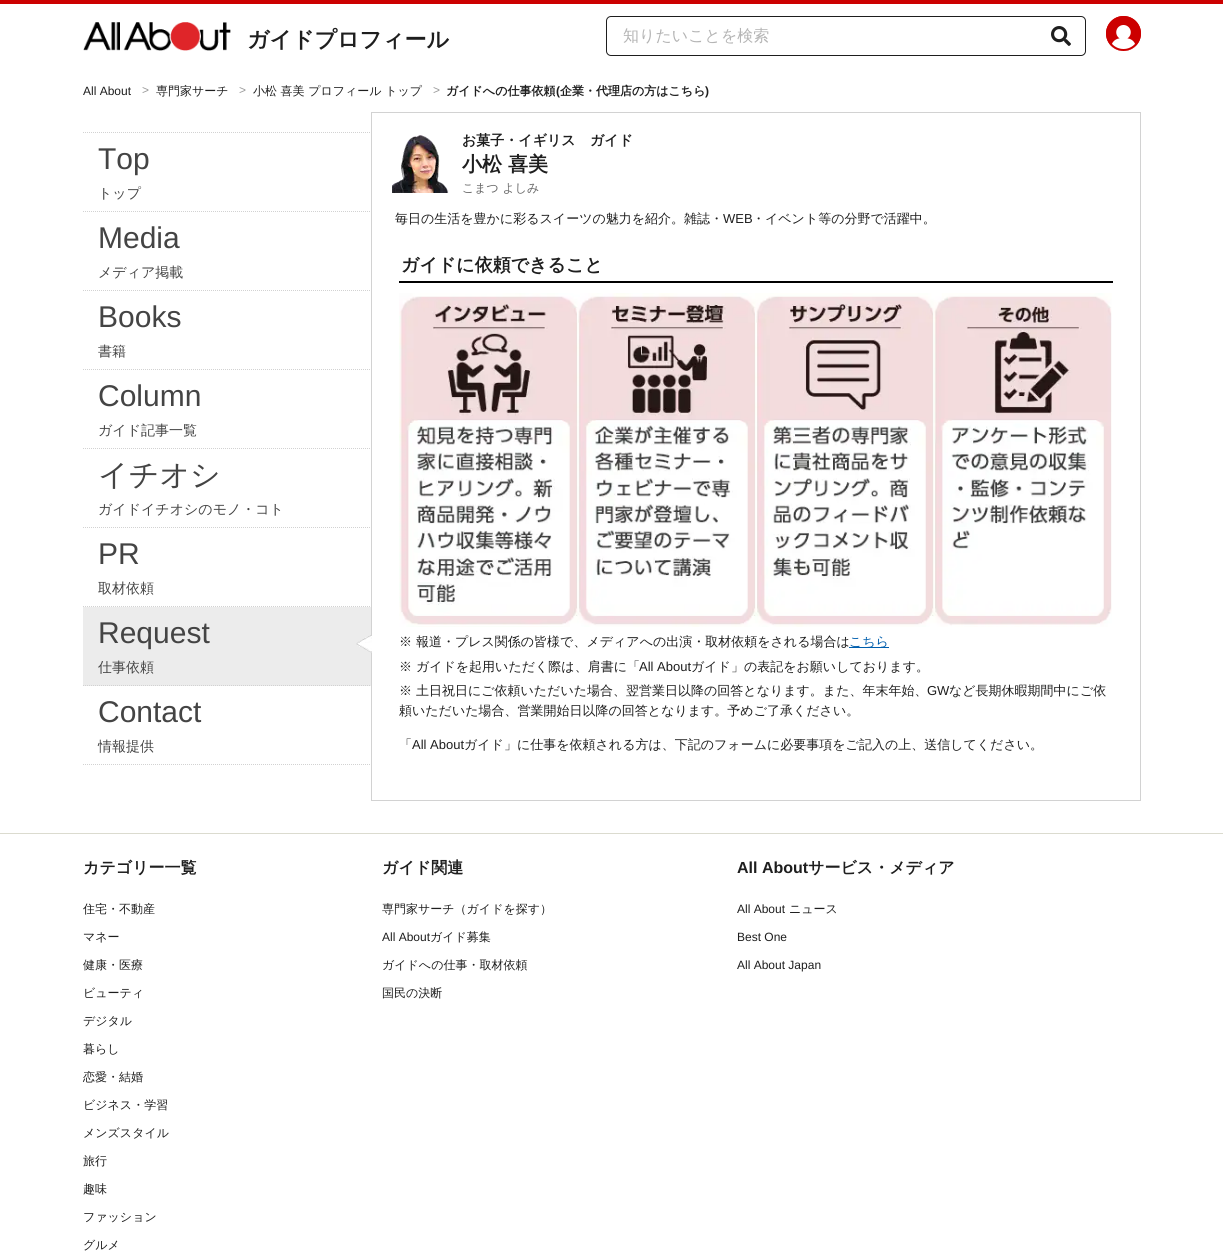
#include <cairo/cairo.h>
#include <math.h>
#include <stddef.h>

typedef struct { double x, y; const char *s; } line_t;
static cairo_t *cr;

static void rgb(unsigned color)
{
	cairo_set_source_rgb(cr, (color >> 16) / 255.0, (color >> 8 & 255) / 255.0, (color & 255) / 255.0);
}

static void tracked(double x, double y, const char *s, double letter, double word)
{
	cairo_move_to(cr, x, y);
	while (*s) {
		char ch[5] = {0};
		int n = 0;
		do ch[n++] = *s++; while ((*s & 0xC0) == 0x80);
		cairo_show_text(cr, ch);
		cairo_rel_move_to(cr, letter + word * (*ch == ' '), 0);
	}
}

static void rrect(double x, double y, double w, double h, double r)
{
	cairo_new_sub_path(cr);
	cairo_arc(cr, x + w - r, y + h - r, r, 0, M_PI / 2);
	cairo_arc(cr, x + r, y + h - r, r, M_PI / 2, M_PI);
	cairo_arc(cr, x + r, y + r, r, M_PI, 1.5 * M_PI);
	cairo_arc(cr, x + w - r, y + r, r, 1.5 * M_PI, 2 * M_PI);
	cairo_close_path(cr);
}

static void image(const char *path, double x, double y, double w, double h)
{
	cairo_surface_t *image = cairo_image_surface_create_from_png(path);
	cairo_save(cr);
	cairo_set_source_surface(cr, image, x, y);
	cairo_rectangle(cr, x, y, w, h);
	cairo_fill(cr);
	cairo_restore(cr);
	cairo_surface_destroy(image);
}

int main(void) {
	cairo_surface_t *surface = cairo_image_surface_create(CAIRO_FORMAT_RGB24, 1223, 1256);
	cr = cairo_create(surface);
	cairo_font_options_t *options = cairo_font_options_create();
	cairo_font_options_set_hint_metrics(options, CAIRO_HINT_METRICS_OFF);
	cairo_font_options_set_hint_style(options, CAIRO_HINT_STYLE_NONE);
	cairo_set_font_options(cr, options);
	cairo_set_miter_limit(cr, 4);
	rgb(0xffffff);
	cairo_paint(cr);
	rgb(0xcc0000);
	cairo_rectangle(cr, 0, 0, 1223, 4);
	cairo_fill(cr);
	image("img/1.png", 83, 22, 148, 29);
	rrect(606.5, 16.5, 479, 39, 4.5);
	rgb(0x1e1e1e);
	cairo_set_line_width(cr, 1);
	cairo_stroke(cr);
	image("img/2.png", 1051, 26, 20, 20);
	rgb(0xcc0000);
	cairo_arc(cr, 1123.5, 33.5, 17.5, 0, 2 * M_PI);
	cairo_fill(cr);
	image("img/3.png", 1111, 25, 25, 26);
	cairo_arc(cr, 1123.5, 33.5, 16.5, 0, 2 * M_PI);
	cairo_set_line_width(cr, 2);
	cairo_stroke(cr);
	cairo_new_path(cr);
	cairo_move_to(cr, 83, 132.5);
	cairo_line_to(cr, 371, 132.5);
	rgb(0xd2d2d2);
	cairo_set_line_width(cr, 1);
	cairo_set_dash(cr, (double[]){1, 1}, 2, 0);
	cairo_stroke(cr);
	cairo_new_path(cr);
	cairo_move_to(cr, 83, 211.5);
	cairo_line_to(cr, 371, 211.5);
	cairo_stroke(cr);
	cairo_new_path(cr);
	cairo_move_to(cr, 83, 290.5);
	cairo_line_to(cr, 371, 290.5);
	cairo_stroke(cr);
	cairo_new_path(cr);
	cairo_move_to(cr, 83, 369.5);
	cairo_line_to(cr, 371, 369.5);
	cairo_stroke(cr);
	cairo_new_path(cr);
	cairo_move_to(cr, 83, 448.5);
	cairo_line_to(cr, 371, 448.5);
	cairo_stroke(cr);
	cairo_new_path(cr);
	cairo_move_to(cr, 83, 527.5);
	cairo_line_to(cr, 371, 527.5);
	cairo_stroke(cr);
	cairo_new_path(cr);
	cairo_move_to(cr, 83, 606.5);
	cairo_line_to(cr, 371, 606.5);
	cairo_stroke(cr);
	rgb(0xececec);
	cairo_rectangle(cr, 83, 607, 288, 79);
	cairo_fill(cr);
	cairo_new_path(cr);
	cairo_move_to(cr, 83, 685.5);
	cairo_line_to(cr, 371, 685.5);
	rgb(0xd2d2d2);
	cairo_stroke(cr);
	cairo_rectangle(cr, 371.5, 112.5, 769, 688);
	cairo_set_dash(cr, NULL, 0, 0);
	cairo_stroke(cr);
	image("img/4.png", 356, 635, 16, 18);
	cairo_new_path(cr);
	cairo_move_to(cr, 83, 764.5);
	cairo_line_to(cr, 371, 764.5);
	cairo_set_dash(cr, (double[]){1, 1}, 2, 0);
	cairo_stroke(cr);
	image("img/5.png", 392, 135, 57, 58);
	rgb(0x000000);
	cairo_rectangle(cr, 399, 281, 714, 2);
	cairo_fill(cr);
	image("img/6.png", 399, 293, 713, 334);
	rgb(0x005ead);
	cairo_rectangle(cr, 849, 647, 40, 1);
	cairo_fill(cr);
	rgb(0xdbdbcf);
	cairo_rectangle(cr, 0, 833, 1223, 1);
	cairo_fill(cr);
	cairo_select_font_face(cr, "WenQuanYi Zen Hei", CAIRO_FONT_SLANT_NORMAL, CAIRO_FONT_WEIGHT_BOLD);
	cairo_set_font_size(cr, 22);
	rgb(0x1e1e1e);
	cairo_move_to(cr, 247, 47);
	cairo_show_text(cr, "ガイドプロフィール");
	cairo_select_font_face(cr, "WenQuanYi Zen Hei Medium", CAIRO_FONT_SLANT_NORMAL, CAIRO_FONT_WEIGHT_NORMAL);
	cairo_set_font_size(cr, 16);
	rgb(0xb4b4b4);
	cairo_move_to(cr, 623, 41);
	cairo_show_text(cr, "知りたいことを検索");
	cairo_select_font_face(cr, "Liberation Sans", CAIRO_FONT_SLANT_NORMAL, CAIRO_FONT_WEIGHT_NORMAL);
	cairo_set_font_size(cr, 12);
	rgb(0x1e1e1e);
	cairo_move_to(cr, 83, 95);
	cairo_show_text(cr, "All About");
	rgb(0x999999);
	tracked(142, 94, ">", -3, 0);
	cairo_select_font_face(cr, "WenQuanYi Zen Hei Medium", CAIRO_FONT_SLANT_NORMAL, CAIRO_FONT_WEIGHT_NORMAL);
	rgb(0x1e1e1e);
	cairo_move_to(cr, 156, 95);
	cairo_show_text(cr, "専門家サーチ");
	cairo_select_font_face(cr, "Liberation Sans", CAIRO_FONT_SLANT_NORMAL, CAIRO_FONT_WEIGHT_NORMAL);
	rgb(0x999999);
	tracked(239, 94, ">", -3, 0);
	cairo_select_font_face(cr, "WenQuanYi Zen Hei Medium", CAIRO_FONT_SLANT_NORMAL, CAIRO_FONT_WEIGHT_NORMAL);
	rgb(0x1e1e1e);
	cairo_move_to(cr, 253, 95);
	cairo_show_text(cr, "小松 喜美 プロフィール トップ");
	cairo_select_font_face(cr, "Liberation Sans", CAIRO_FONT_SLANT_NORMAL, CAIRO_FONT_WEIGHT_NORMAL);
	rgb(0x999999);
	tracked(433, 94, ">", -3, 0);
	cairo_select_font_face(cr, "WenQuanYi Zen Hei", CAIRO_FONT_SLANT_NORMAL, CAIRO_FONT_WEIGHT_BOLD);
	rgb(0x1e1e1e);
	cairo_move_to(cr, 446, 95);
	cairo_show_text(cr, "ガイドへの仕事依頼");
	cairo_select_font_face(cr, "Liberation Sans", CAIRO_FONT_SLANT_NORMAL, CAIRO_FONT_WEIGHT_BOLD);
	cairo_move_to(cr, 556, 95);
	cairo_show_text(cr, "(");
	cairo_select_font_face(cr, "WenQuanYi Zen Hei", CAIRO_FONT_SLANT_NORMAL, CAIRO_FONT_WEIGHT_BOLD);
	cairo_move_to(cr, 560, 95);
	cairo_show_text(cr, "企業・代理店の方はこちら");
	cairo_select_font_face(cr, "Liberation Sans", CAIRO_FONT_SLANT_NORMAL, CAIRO_FONT_WEIGHT_BOLD);
	cairo_move_to(cr, 705, 95);
	cairo_show_text(cr, ")");
	cairo_select_font_face(cr, "Liberation Sans", CAIRO_FONT_SLANT_NORMAL, CAIRO_FONT_WEIGHT_NORMAL);
	cairo_set_font_size(cr, 30);
	rgb(0x444444);
	cairo_move_to(cr, 98, 169);
	cairo_show_text(cr, "Top");
	cairo_select_font_face(cr, "WenQuanYi Zen Hei Medium", CAIRO_FONT_SLANT_NORMAL, CAIRO_FONT_WEIGHT_NORMAL);
	cairo_set_font_size(cr, 14);
	cairo_move_to(cr, 98, 198);
	cairo_show_text(cr, "トップ");
	cairo_select_font_face(cr, "Liberation Sans", CAIRO_FONT_SLANT_NORMAL, CAIRO_FONT_WEIGHT_NORMAL);
	cairo_set_font_size(cr, 30);
	cairo_move_to(cr, 98, 248);
	cairo_show_text(cr, "Media");
	cairo_select_font_face(cr, "WenQuanYi Zen Hei Medium", CAIRO_FONT_SLANT_NORMAL, CAIRO_FONT_WEIGHT_NORMAL);
	cairo_set_font_size(cr, 14);
	cairo_move_to(cr, 98, 277);
	cairo_show_text(cr, "メディア掲載");
	cairo_select_font_face(cr, "Liberation Sans", CAIRO_FONT_SLANT_NORMAL, CAIRO_FONT_WEIGHT_NORMAL);
	cairo_set_font_size(cr, 30);
	cairo_move_to(cr, 98, 327);
	cairo_show_text(cr, "Books");
	cairo_select_font_face(cr, "WenQuanYi Zen Hei Medium", CAIRO_FONT_SLANT_NORMAL, CAIRO_FONT_WEIGHT_NORMAL);
	cairo_set_font_size(cr, 14);
	cairo_move_to(cr, 98, 356);
	cairo_show_text(cr, "書籍");
	cairo_select_font_face(cr, "Liberation Sans", CAIRO_FONT_SLANT_NORMAL, CAIRO_FONT_WEIGHT_NORMAL);
	cairo_set_font_size(cr, 30);
	cairo_move_to(cr, 98, 406);
	cairo_show_text(cr, "Column");
	cairo_select_font_face(cr, "WenQuanYi Zen Hei Medium", CAIRO_FONT_SLANT_NORMAL, CAIRO_FONT_WEIGHT_NORMAL);
	cairo_set_font_size(cr, 14);
	cairo_move_to(cr, 98, 435);
	cairo_show_text(cr, "ガイド記事一覧");
	cairo_set_font_size(cr, 30);
	cairo_move_to(cr, 98, 485);
	cairo_show_text(cr, "イチオシ");
	cairo_set_font_size(cr, 14);
	cairo_move_to(cr, 98, 514);
	cairo_show_text(cr, "ガイドイチオシのモノ・コト");
	cairo_select_font_face(cr, "Liberation Sans", CAIRO_FONT_SLANT_NORMAL, CAIRO_FONT_WEIGHT_NORMAL);
	cairo_set_font_size(cr, 30);
	cairo_move_to(cr, 98, 564);
	cairo_show_text(cr, "PR");
	cairo_select_font_face(cr, "WenQuanYi Zen Hei Medium", CAIRO_FONT_SLANT_NORMAL, CAIRO_FONT_WEIGHT_NORMAL);
	cairo_set_font_size(cr, 14);
	cairo_move_to(cr, 98, 593);
	cairo_show_text(cr, "取材依頼");
	cairo_select_font_face(cr, "Liberation Sans", CAIRO_FONT_SLANT_NORMAL, CAIRO_FONT_WEIGHT_NORMAL);
	cairo_set_font_size(cr, 30);
	cairo_move_to(cr, 98, 643);
	cairo_show_text(cr, "Request");
	cairo_select_font_face(cr, "WenQuanYi Zen Hei Medium", CAIRO_FONT_SLANT_NORMAL, CAIRO_FONT_WEIGHT_NORMAL);
	cairo_set_font_size(cr, 14);
	cairo_move_to(cr, 98, 672);
	cairo_show_text(cr, "仕事依頼");
	cairo_select_font_face(cr, "Liberation Sans", CAIRO_FONT_SLANT_NORMAL, CAIRO_FONT_WEIGHT_NORMAL);
	cairo_set_font_size(cr, 30);
	cairo_move_to(cr, 98, 722);
	cairo_show_text(cr, "Contact");
	cairo_select_font_face(cr, "WenQuanYi Zen Hei Medium", CAIRO_FONT_SLANT_NORMAL, CAIRO_FONT_WEIGHT_NORMAL);
	cairo_set_font_size(cr, 14);
	cairo_move_to(cr, 98, 751);
	cairo_show_text(cr, "情報提供");
	cairo_select_font_face(cr, "WenQuanYi Zen Hei", CAIRO_FONT_SLANT_NORMAL, CAIRO_FONT_WEIGHT_BOLD);
	rgb(0x1e1e1e);
	cairo_move_to(cr, 462, 145);
	cairo_show_text(cr, "お菓子・イギリス");
	cairo_move_to(cr, 590, 145);
	cairo_show_text(cr, "ガイド");
	cairo_set_font_size(cr, 20);
	cairo_move_to(cr, 462, 171);
	cairo_show_text(cr, "小松 喜美");
	cairo_select_font_face(cr, "WenQuanYi Zen Hei Medium", CAIRO_FONT_SLANT_NORMAL, CAIRO_FONT_WEIGHT_NORMAL);
	cairo_set_font_size(cr, 12);
	rgb(0x666666);
	cairo_move_to(cr, 462, 192);
	cairo_show_text(cr, "こまつ よしみ");
	cairo_set_font_size(cr, 13);
	rgb(0x1e1e1e);
	cairo_move_to(cr, 395, 223);
	cairo_show_text(cr, "毎日の生活を豊かに彩るスイーツの魅力を紹介。雑誌・");
	cairo_select_font_face(cr, "Liberation Sans", CAIRO_FONT_SLANT_NORMAL, CAIRO_FONT_WEIGHT_NORMAL);
	cairo_move_to(cr, 723, 223);
	cairo_show_text(cr, "WEB");
	cairo_select_font_face(cr, "WenQuanYi Zen Hei Medium", CAIRO_FONT_SLANT_NORMAL, CAIRO_FONT_WEIGHT_NORMAL);
	cairo_move_to(cr, 752, 223);
	cairo_show_text(cr, "・イベント等の分野で活躍中。");
	cairo_select_font_face(cr, "WenQuanYi Zen Hei", CAIRO_FONT_SLANT_NORMAL, CAIRO_FONT_WEIGHT_BOLD);
	cairo_set_font_size(cr, 18);
	cairo_move_to(cr, 401, 271);
	cairo_show_text(cr, "ガイドに依頼できること");
	cairo_select_font_face(cr, "WenQuanYi Zen Hei Medium", CAIRO_FONT_SLANT_NORMAL, CAIRO_FONT_WEIGHT_NORMAL);
	cairo_set_font_size(cr, 13);
	cairo_move_to(cr, 399, 646);
	cairo_show_text(cr, "※ 報道・プレス関係の皆様で、メディアへの出演・取材依頼をされる場合は");
	rgb(0x005ead);
	cairo_move_to(cr, 849, 646);
	cairo_show_text(cr, "こちら");
	rgb(0x1e1e1e);
	cairo_move_to(cr, 399, 671);
	cairo_show_text(cr, "※ ガイドを起用いただく際は、肩書に「");
	cairo_select_font_face(cr, "Liberation Sans", CAIRO_FONT_SLANT_NORMAL, CAIRO_FONT_WEIGHT_NORMAL);
	cairo_move_to(cr, 639, 671);
	cairo_show_text(cr, "All About");
	cairo_select_font_face(cr, "WenQuanYi Zen Hei Medium", CAIRO_FONT_SLANT_NORMAL, CAIRO_FONT_WEIGHT_NORMAL);
	cairo_move_to(cr, 691, 671);
	cairo_show_text(cr, "ガイド」の表記をお願いしております。");
	cairo_move_to(cr, 399, 695);
	cairo_show_text(cr, "※ 土日祝日にご依頼いただいた場合、翌営業日以降の回答となります。また、年末年始、");
	cairo_select_font_face(cr, "Liberation Sans", CAIRO_FONT_SLANT_NORMAL, CAIRO_FONT_WEIGHT_NORMAL);
	cairo_move_to(cr, 927, 695);
	cairo_show_text(cr, "GW");
	cairo_select_font_face(cr, "WenQuanYi Zen Hei Medium", CAIRO_FONT_SLANT_NORMAL, CAIRO_FONT_WEIGHT_NORMAL);
	{
		static const line_t items[] = {
			{949, 695, "など長期休暇期間中にご依"},
			{399, 715, "頼いただいた場合、営業開始日以降の回答となります。予めご了承ください。"},
			{399, 749, "「"},
		};
		for (size_t i = 0; i < sizeof items / sizeof *items; i++) {
			cairo_move_to(cr, items[i].x, items[i].y);
			cairo_show_text(cr, items[i].s);
		}
	}
	cairo_select_font_face(cr, "Liberation Sans", CAIRO_FONT_SLANT_NORMAL, CAIRO_FONT_WEIGHT_NORMAL);
	cairo_move_to(cr, 412, 749);
	cairo_show_text(cr, "All About");
	cairo_select_font_face(cr, "WenQuanYi Zen Hei Medium", CAIRO_FONT_SLANT_NORMAL, CAIRO_FONT_WEIGHT_NORMAL);
	cairo_move_to(cr, 464, 749);
	cairo_show_text(cr, "ガイド」に仕事を依頼される方は、下記のフォームに必要事項をご記入の上、送信してください。");
	cairo_select_font_face(cr, "WenQuanYi Zen Hei", CAIRO_FONT_SLANT_NORMAL, CAIRO_FONT_WEIGHT_BOLD);
	cairo_set_font_size(cr, 16);
	cairo_move_to(cr, 83, 873);
	cairo_show_text(cr, "カテゴリー一覧");
	cairo_select_font_face(cr, "WenQuanYi Zen Hei Medium", CAIRO_FONT_SLANT_NORMAL, CAIRO_FONT_WEIGHT_NORMAL);
	cairo_set_font_size(cr, 12);
	{
		static const line_t items[] = {
			{83, 913, "住宅・不動産"},
			{83, 941, "マネー"},
			{83, 969, "健康・医療"},
			{83, 997, "ビューティ"},
			{83, 1025, "デジタル"},
			{83, 1053, "暮らし"},
			{83, 1081, "恋愛・結婚"},
			{83, 1109, "ビジネス・学習"},
			{83, 1137, "メンズスタイル"},
			{83, 1165, "旅行"},
			{83, 1193, "趣味"},
			{83, 1221, "ファッション"},
			{83, 1249, "グルメ"},
		};
		for (size_t i = 0; i < sizeof items / sizeof *items; i++) {
			cairo_move_to(cr, items[i].x, items[i].y);
			cairo_show_text(cr, items[i].s);
		}
	}
	cairo_select_font_face(cr, "WenQuanYi Zen Hei", CAIRO_FONT_SLANT_NORMAL, CAIRO_FONT_WEIGHT_BOLD);
	cairo_set_font_size(cr, 16);
	cairo_move_to(cr, 382, 873);
	cairo_show_text(cr, "ガイド関連");
	cairo_select_font_face(cr, "WenQuanYi Zen Hei Medium", CAIRO_FONT_SLANT_NORMAL, CAIRO_FONT_WEIGHT_NORMAL);
	cairo_set_font_size(cr, 12);
	cairo_move_to(cr, 382, 913);
	cairo_show_text(cr, "専門家サーチ（ガイドを探す）");
	cairo_select_font_face(cr, "Liberation Sans", CAIRO_FONT_SLANT_NORMAL, CAIRO_FONT_WEIGHT_NORMAL);
	cairo_move_to(cr, 382, 941);
	cairo_show_text(cr, "All About");
	cairo_select_font_face(cr, "WenQuanYi Zen Hei Medium", CAIRO_FONT_SLANT_NORMAL, CAIRO_FONT_WEIGHT_NORMAL);
	{
		static const line_t items[] = {
			{430, 941, "ガイド募集"},
			{382, 969, "ガイドへの仕事・取材依頼"},
			{382, 997, "国民の決断"},
		};
		for (size_t i = 0; i < sizeof items / sizeof *items; i++) {
			cairo_move_to(cr, items[i].x, items[i].y);
			cairo_show_text(cr, items[i].s);
		}
	}
	cairo_select_font_face(cr, "Liberation Sans", CAIRO_FONT_SLANT_NORMAL, CAIRO_FONT_WEIGHT_BOLD);
	cairo_set_font_size(cr, 16);
	cairo_move_to(cr, 737, 873);
	cairo_show_text(cr, "All About");
	cairo_select_font_face(cr, "WenQuanYi Zen Hei", CAIRO_FONT_SLANT_NORMAL, CAIRO_FONT_WEIGHT_BOLD);
	cairo_move_to(cr, 808, 873);
	cairo_show_text(cr, "サービス・メディア");
	cairo_select_font_face(cr, "Liberation Sans", CAIRO_FONT_SLANT_NORMAL, CAIRO_FONT_WEIGHT_NORMAL);
	cairo_set_font_size(cr, 12);
	cairo_move_to(cr, 737, 913);
	cairo_show_text(cr, "All About");
	cairo_select_font_face(cr, "WenQuanYi Zen Hei Medium", CAIRO_FONT_SLANT_NORMAL, CAIRO_FONT_WEIGHT_NORMAL);
	cairo_move_to(cr, 789, 913);
	cairo_show_text(cr, "ニュース");
	cairo_select_font_face(cr, "Liberation Sans", CAIRO_FONT_SLANT_NORMAL, CAIRO_FONT_WEIGHT_NORMAL);
	cairo_move_to(cr, 737, 941);
	cairo_show_text(cr, "Best One");
	cairo_move_to(cr, 737, 969);
	cairo_show_text(cr, "All About Japan");
	cairo_surface_write_to_png(surface, "page.png");
	cairo_font_options_destroy(options);
	cairo_destroy(cr);
	cairo_surface_destroy(surface);
	return 0;
}
